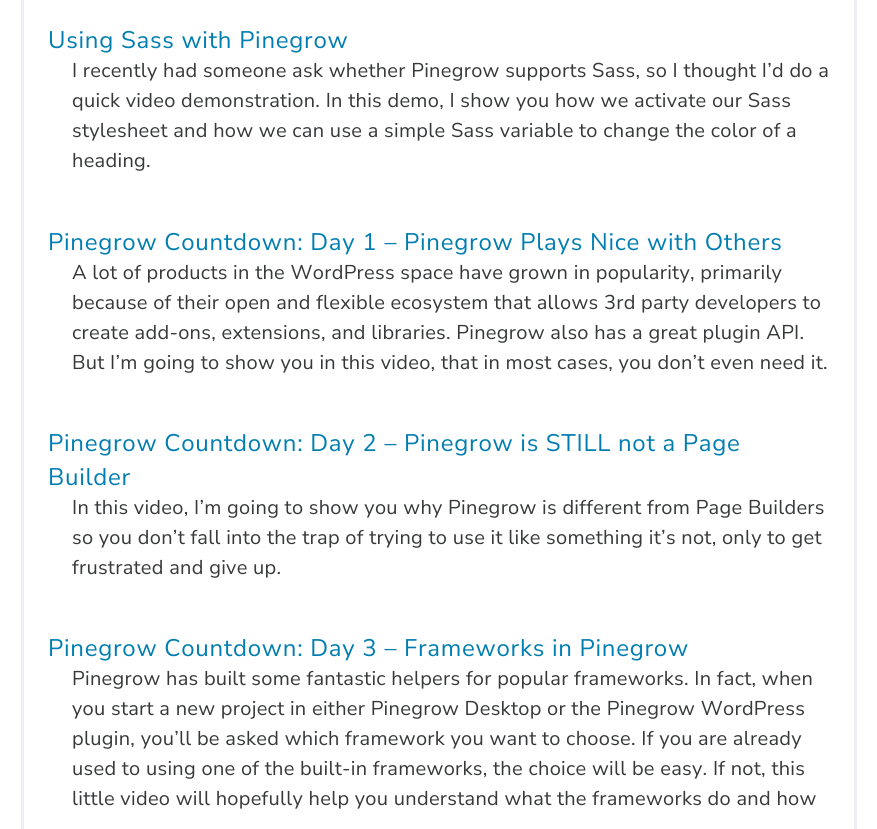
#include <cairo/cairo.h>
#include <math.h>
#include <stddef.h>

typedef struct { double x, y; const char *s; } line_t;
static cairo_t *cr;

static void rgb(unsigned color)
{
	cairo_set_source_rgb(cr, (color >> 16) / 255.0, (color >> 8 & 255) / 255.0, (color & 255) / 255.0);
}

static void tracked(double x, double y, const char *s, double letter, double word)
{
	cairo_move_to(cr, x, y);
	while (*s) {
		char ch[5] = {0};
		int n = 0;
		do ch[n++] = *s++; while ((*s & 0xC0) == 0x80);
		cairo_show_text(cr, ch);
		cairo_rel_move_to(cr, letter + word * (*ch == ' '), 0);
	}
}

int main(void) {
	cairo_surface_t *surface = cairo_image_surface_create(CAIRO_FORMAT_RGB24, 877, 829);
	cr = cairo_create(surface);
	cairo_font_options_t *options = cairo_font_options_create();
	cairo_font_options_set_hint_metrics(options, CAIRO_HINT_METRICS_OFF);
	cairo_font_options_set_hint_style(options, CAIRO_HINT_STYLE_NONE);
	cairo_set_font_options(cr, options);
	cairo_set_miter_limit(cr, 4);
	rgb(0xffffff);
	cairo_paint(cr);
	cairo_rectangle(cr, 22.5, -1.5, 833, 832);
	rgb(0xeeedf5);
	cairo_set_line_width(cr, 3);
	cairo_stroke(cr);
	cairo_select_font_face(cr, "Nunito Sans", CAIRO_FONT_SLANT_NORMAL, CAIRO_FONT_WEIGHT_NORMAL);
	cairo_set_font_size(cr, 24);
	rgb(0x007db1);
	tracked(48, 48, "Using Sass with Pinegrow", 0.75, 0);
	cairo_set_font_size(cr, 20);
	rgb(0x363839);
	{
		static const line_t items[] = {
			{72, 77, "I recently had someone ask whether Pinegrow supports Sass, so I thought I’d do a"},
			{72, 107, "quick video demonstration. In this demo, I show you how we activate our Sass"},
			{72, 137, "stylesheet and how we can use a simple Sass variable to change the color of a"},
			{72, 167, "heading."},
		};
		for (size_t i = 0; i < sizeof items / sizeof *items; i++) {
			tracked(items[i].x, items[i].y, items[i].s, 0.3, 0);
		}
	}
	cairo_set_font_size(cr, 24);
	rgb(0x007db1);
	tracked(48, 250, "Pinegrow Countdown: Day 1 – Pinegrow Plays Nice with Others", 0.75, 0);
	cairo_set_font_size(cr, 20);
	rgb(0x363839);
	{
		static const line_t items[] = {
			{72, 279, "A lot of products in the WordPress space have grown in popularity, primarily"},
			{72, 309, "because of their open and flexible ecosystem that allows 3rd party developers to"},
			{72, 339, "create add-ons, extensions, and libraries. Pinegrow also has a great plugin API."},
			{72, 369, "But I’m going to show you in this video, that in most cases, you don’t even need it."},
		};
		for (size_t i = 0; i < sizeof items / sizeof *items; i++) {
			tracked(items[i].x, items[i].y, items[i].s, 0.3, 0);
		}
	}
	cairo_set_font_size(cr, 24);
	rgb(0x007db1);
	tracked(48, 451, "Pinegrow Countdown: Day 2 – Pinegrow is STILL not a Page", 0.75, 0);
	tracked(48, 485, "Builder", 0.75, 0);
	cairo_set_font_size(cr, 20);
	rgb(0x363839);
	{
		static const line_t items[] = {
			{72, 514, "In this video, I’m going to show you why Pinegrow is different from Page Builders"},
			{72, 544, "so you don’t fall into the trap of trying to use it like something it’s not, only to get"},
			{72, 574, "frustrated and give up."},
		};
		for (size_t i = 0; i < sizeof items / sizeof *items; i++) {
			tracked(items[i].x, items[i].y, items[i].s, 0.3, 0);
		}
	}
	cairo_set_font_size(cr, 24);
	rgb(0x007db1);
	tracked(48, 656, "Pinegrow Countdown: Day 3 – Frameworks in Pinegrow", 0.75, 0);
	cairo_set_font_size(cr, 20);
	rgb(0x363839);
	{
		static const line_t items[] = {
			{72, 685, "Pinegrow has built some fantastic helpers for popular frameworks. In fact, when"},
			{72, 715, "you start a new project in either Pinegrow Desktop or the Pinegrow WordPress"},
			{72, 745, "plugin, you’ll be asked which framework you want to choose. If you are already"},
			{72, 775, "used to using one of the built-in frameworks, the choice will be easy. If not, this"},
			{72, 805, "little video will hopefully help you understand what the frameworks do and how"},
		};
		for (size_t i = 0; i < sizeof items / sizeof *items; i++) {
			tracked(items[i].x, items[i].y, items[i].s, 0.3, 0);
		}
	}
	cairo_surface_write_to_png(surface, "page.png");
	cairo_font_options_destroy(options);
	cairo_destroy(cr);
	cairo_surface_destroy(surface);
	return 0;
}
